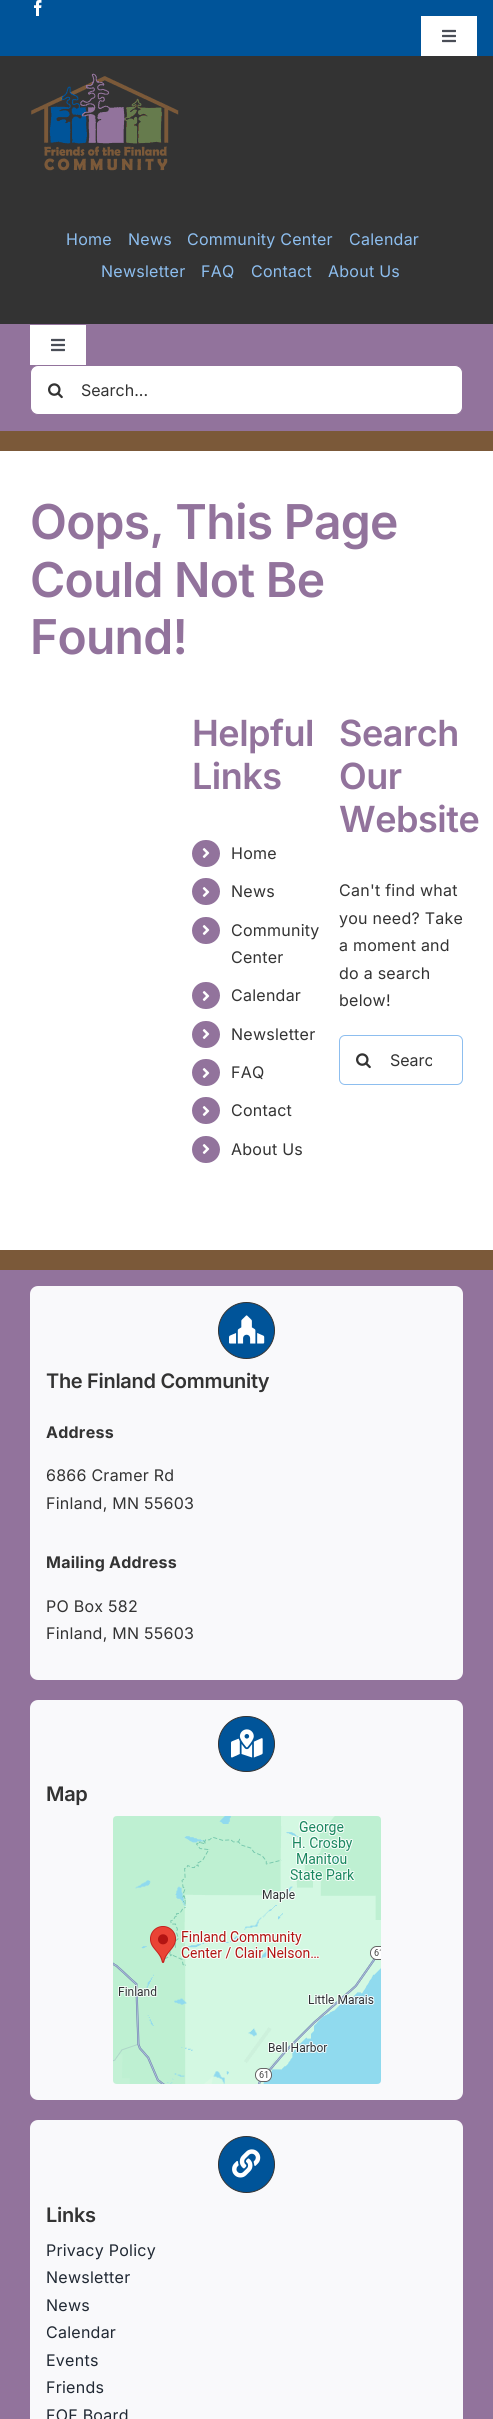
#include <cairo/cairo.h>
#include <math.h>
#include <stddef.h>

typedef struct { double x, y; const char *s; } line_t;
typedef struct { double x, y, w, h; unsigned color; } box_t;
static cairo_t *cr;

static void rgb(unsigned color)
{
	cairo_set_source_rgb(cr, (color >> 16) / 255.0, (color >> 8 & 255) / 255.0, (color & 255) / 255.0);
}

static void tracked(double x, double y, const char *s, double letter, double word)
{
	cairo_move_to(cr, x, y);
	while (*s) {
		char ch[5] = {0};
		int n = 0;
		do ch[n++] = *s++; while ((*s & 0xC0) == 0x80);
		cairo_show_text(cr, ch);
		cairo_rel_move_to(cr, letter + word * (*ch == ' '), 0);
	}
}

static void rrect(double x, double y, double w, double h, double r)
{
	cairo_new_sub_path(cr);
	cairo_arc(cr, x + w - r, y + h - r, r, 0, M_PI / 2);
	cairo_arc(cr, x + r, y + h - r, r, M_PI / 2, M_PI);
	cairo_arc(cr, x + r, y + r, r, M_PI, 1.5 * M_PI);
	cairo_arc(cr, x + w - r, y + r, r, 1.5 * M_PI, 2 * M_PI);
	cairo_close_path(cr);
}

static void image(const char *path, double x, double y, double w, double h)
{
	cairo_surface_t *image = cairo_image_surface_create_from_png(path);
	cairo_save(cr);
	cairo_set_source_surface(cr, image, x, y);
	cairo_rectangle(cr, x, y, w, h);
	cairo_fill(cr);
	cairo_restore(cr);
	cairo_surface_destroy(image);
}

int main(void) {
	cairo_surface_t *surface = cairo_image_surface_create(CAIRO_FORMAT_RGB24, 493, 2419);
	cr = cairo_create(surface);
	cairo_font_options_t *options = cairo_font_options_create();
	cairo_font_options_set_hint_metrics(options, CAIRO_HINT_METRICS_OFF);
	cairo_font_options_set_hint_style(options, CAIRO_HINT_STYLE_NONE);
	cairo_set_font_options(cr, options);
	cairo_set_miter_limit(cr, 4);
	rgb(0xffffff);
	cairo_paint(cr);
	rgb(0x005499);
	cairo_rectangle(cr, 0, 0, 493, 56);
	cairo_fill(cr);
	image("img/1.png", 34, 0, 8, 16);
	rgb(0xffffff);
	cairo_rectangle(cr, 421, 16, 56, 40);
	cairo_fill(cr);
	image("img/2.png", 442, 29, 14, 14);
	rgb(0x333333);
	cairo_rectangle(cr, 0, 56, 493, 268);
	cairo_fill(cr);
	image("img/3.png", 31, 73, 148, 98);
	{
		static const box_t items[] = {
			{0, 324, 493, 107, 0x92739c},
			{0, 431, 493, 20, 0x7b5939},
			{30, 325, 56, 40, 0xffffff},
		};
		for (size_t i = 0; i < sizeof items / sizeof *items; i++) {
			rgb(items[i].color);
			cairo_rectangle(cr, items[i].x, items[i].y, items[i].w, items[i].h);
			cairo_fill(cr);
		}
	}
	image("img/2.png", 51, 338, 14, 14);
	rrect(30.5, 365.5, 432, 49, 7.5);
	cairo_fill_preserve(cr);
	rgb(0x92739c);
	cairo_set_line_width(cr, 1);
	cairo_stroke(cr);
	image("img/4.png", 48, 383, 15, 16);
	rrect(192, 840, 28, 27, 13.5);
	cairo_fill(cr);
	image("img/5.png", 202, 848, 8, 10);
	rrect(192, 878, 28, 27, 13.5);
	cairo_fill(cr);
	image("img/5.png", 202, 887, 8, 10);
	rrect(192, 917, 28, 27, 13.5);
	cairo_fill(cr);
	image("img/5.png", 202, 925, 8, 10);
	rrect(192, 982, 28, 27, 13.5);
	cairo_fill(cr);
	image("img/5.png", 202, 991, 8, 10);
	rrect(192, 1021, 28, 27, 13.5);
	cairo_fill(cr);
	image("img/5.png", 202, 1029, 8, 10);
	rrect(192, 1059, 28, 27, 13.5);
	cairo_fill(cr);
	image("img/5.png", 202, 1068, 8, 10);
	rrect(192, 1097, 28, 27, 13.5);
	cairo_fill(cr);
	image("img/5.png", 202, 1106, 8, 10);
	rrect(192, 1136, 28, 27, 13.5);
	cairo_fill(cr);
	image("img/5.png", 202, 1144, 8, 10);
	rrect(339.5, 1035.5, 123, 49, 5.5);
	rgb(0x8dbeef);
	cairo_stroke(cr);
	image("img/4.png", 356, 1053, 15, 16);
	rgb(0x92739c);
	cairo_rectangle(cr, 0, 1270, 493, 1149);
	cairo_fill(cr);
	rgb(0x7b5939);
	cairo_rectangle(cr, 0, 1250, 493, 20);
	cairo_fill(cr);
	rgb(0xf9f9fb);
	rrect(30, 1286, 433, 394, 8);
	cairo_fill(cr);
	rgb(0x005499);
	cairo_arc(cr, 246.5, 1330.5, 28, 0, 2 * M_PI);
	cairo_fill_preserve(cr);
	rgb(0x333333);
	cairo_stroke(cr);
	image("img/6.png", 229, 1315, 36, 29);
	rgb(0xf9f9fb);
	rrect(30, 1700, 433, 400, 8);
	cairo_fill(cr);
	rgb(0x005499);
	rrect(218.5, 1716.5, 56, 55, 27.5);
	cairo_fill_preserve(cr);
	rgb(0x333333);
	cairo_stroke(cr);
	image("img/7.png", 231, 1729, 32, 29);
	image("img/8.png", 113, 1816, 268, 268);
	rgb(0xf9f9fb);
	rrect(30, 2120, 433, 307, 8);
	cairo_fill(cr);
	rgb(0x005499);
	cairo_arc(cr, 246.5, 2164.5, 28, 0, 2 * M_PI);
	cairo_fill_preserve(cr);
	rgb(0x333333);
	cairo_stroke(cr);
	image("img/9.png", 232, 2149, 29, 29);
	cairo_select_font_face(cr, "Inter", CAIRO_FONT_SLANT_NORMAL, CAIRO_FONT_WEIGHT_NORMAL);
	cairo_set_font_size(cr, 16);
	rgb(0x8dbeef);
	{
		static const line_t items[] = {
			{66, 245, "Home"},
			{128, 245, "News"},
			{187, 245, "Community Center"},
			{349, 245, "Calendar"},
			{101, 277, "Newsletter"},
			{201, 277, "FAQ"},
			{251, 277, "Contact"},
			{328, 277, "About Us"},
		};
		for (size_t i = 0; i < sizeof items / sizeof *items; i++) {
			tracked(items[i].x, items[i].y, items[i].s, 0.25, 0);
		}
	}
	rgb(0x333333);
	cairo_move_to(cr, 81, 396);
	cairo_show_text(cr, "Search...");
	cairo_select_font_face(cr, "Inter SemiBold", CAIRO_FONT_SLANT_NORMAL, CAIRO_FONT_WEIGHT_NORMAL);
	cairo_set_font_size(cr, 48);
	rgb(0x92739c);
	{
		static const line_t items[] = {
			{30, 539, "Oops, This Page"},
			{30, 597, "Could Not Be"},
			{30, 654, "Found!"},
		};
		for (size_t i = 0; i < sizeof items / sizeof *items; i++) {
			tracked(items[i].x, items[i].y, items[i].s, -0.75, 0);
		}
	}
	cairo_set_font_size(cr, 36);
	tracked(192, 746, "Helpful", -0.5, 0);
	tracked(192, 789, "Links", -0.5, 0);
	cairo_select_font_face(cr, "Inter", CAIRO_FONT_SLANT_NORMAL, CAIRO_FONT_WEIGHT_NORMAL);
	cairo_set_font_size(cr, 16);
	rgb(0x333333);
	{
		static const line_t items[] = {
			{231, 859, "Home"},
			{231, 897, "News"},
			{231, 936, "Community"},
			{231, 963, "Center"},
			{231, 1001, "Calendar"},
			{231, 1040, "Newsletter"},
			{231, 1078, "FAQ"},
			{231, 1116, "Contact"},
			{231, 1155, "About Us"},
		};
		for (size_t i = 0; i < sizeof items / sizeof *items; i++) {
			tracked(items[i].x, items[i].y, items[i].s, 0.25, 0);
		}
	}
	cairo_select_font_face(cr, "Inter SemiBold", CAIRO_FONT_SLANT_NORMAL, CAIRO_FONT_WEIGHT_NORMAL);
	cairo_set_font_size(cr, 36);
	rgb(0x92739c);
	{
		static const line_t items[] = {
			{339, 746, "Search"},
			{339, 789, "Our"},
			{339, 832, "Website"},
		};
		for (size_t i = 0; i < sizeof items / sizeof *items; i++) {
			tracked(items[i].x, items[i].y, items[i].s, -0.5, 0);
		}
	}
	cairo_select_font_face(cr, "Inter", CAIRO_FONT_SLANT_NORMAL, CAIRO_FONT_WEIGHT_NORMAL);
	cairo_set_font_size(cr, 16);
	rgb(0x333333);
	{
		static const line_t items[] = {
			{339, 896, "Can't find what"},
			{339, 924, "you need? Take"},
			{339, 951, "a moment and"},
			{339, 979, "do a search"},
			{339, 1006, "below!"},
		};
		for (size_t i = 0; i < sizeof items / sizeof *items; i++) {
			tracked(items[i].x, items[i].y, items[i].s, 0.25, 0);
		}
	}
	cairo_save(cr);
	cairo_rectangle(cr, 390, 1050, 42, 20);
	cairo_clip(cr);
	cairo_move_to(cr, 390, 1066);
	cairo_show_text(cr, "Searc");
	cairo_restore(cr);
	cairo_select_font_face(cr, "Inter SemiBold", CAIRO_FONT_SLANT_NORMAL, CAIRO_FONT_WEIGHT_NORMAL);
	cairo_set_font_size(cr, 20);
	tracked(46, 1388, "The Finland Community", -0.3, 0);
	cairo_select_font_face(cr, "Inter", CAIRO_FONT_SLANT_NORMAL, CAIRO_FONT_WEIGHT_BOLD);
	cairo_set_font_size(cr, 16);
	tracked(46, 1438, "Address", 0.25, 0);
	cairo_select_font_face(cr, "Inter", CAIRO_FONT_SLANT_NORMAL, CAIRO_FONT_WEIGHT_NORMAL);
	tracked(46, 1481, "6866 Cramer Rd", 0.25, 0);
	tracked(46, 1509, "Finland, MN 55603", 0.25, 0);
	cairo_select_font_face(cr, "Inter", CAIRO_FONT_SLANT_NORMAL, CAIRO_FONT_WEIGHT_BOLD);
	tracked(46, 1568, "Mailing Address", 0.25, 0);
	cairo_select_font_face(cr, "Inter", CAIRO_FONT_SLANT_NORMAL, CAIRO_FONT_WEIGHT_NORMAL);
	tracked(46, 1612, "PO Box 582", 0.25, 0);
	tracked(46, 1639, "Finland, MN 55603", 0.25, 0);
	cairo_select_font_face(cr, "Inter SemiBold", CAIRO_FONT_SLANT_NORMAL, CAIRO_FONT_WEIGHT_NORMAL);
	cairo_set_font_size(cr, 20);
	tracked(46, 1801, "Map", -0.3, 0);
	tracked(46, 2222, "Links", -0.3, 0);
	cairo_select_font_face(cr, "Inter", CAIRO_FONT_SLANT_NORMAL, CAIRO_FONT_WEIGHT_NORMAL);
	cairo_set_font_size(cr, 16);
	rgb(0x212934);
	{
		static const line_t items[] = {
			{46, 2256, "Privacy Policy"},
			{46, 2283, "Newsletter"},
			{46, 2311, "News"},
			{46, 2338, "Calendar"},
			{46, 2366, "Events"},
			{46, 2393, "Friends"},
			{46, 2421, "FOF Board"},
		};
		for (size_t i = 0; i < sizeof items / sizeof *items; i++) {
			tracked(items[i].x, items[i].y, items[i].s, 0.25, 0);
		}
	}
	cairo_surface_write_to_png(surface, "page.png");
	cairo_font_options_destroy(options);
	cairo_destroy(cr);
	cairo_surface_destroy(surface);
	return 0;
}
